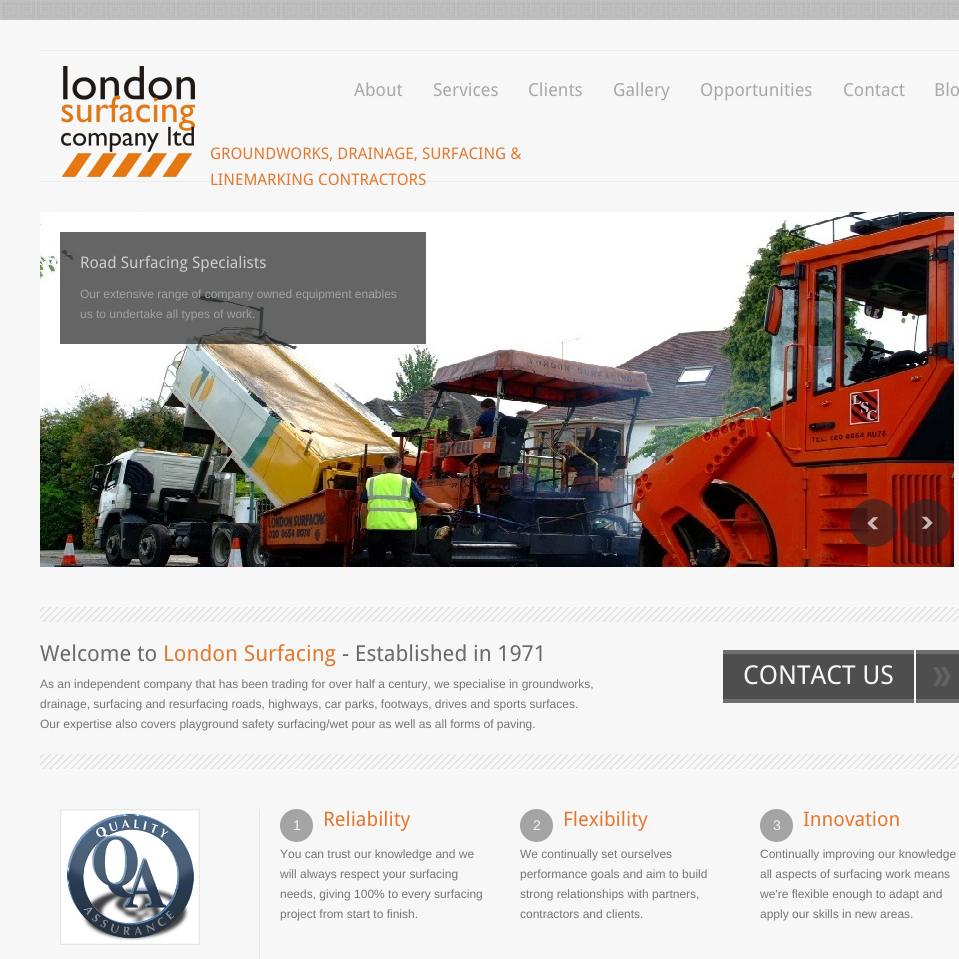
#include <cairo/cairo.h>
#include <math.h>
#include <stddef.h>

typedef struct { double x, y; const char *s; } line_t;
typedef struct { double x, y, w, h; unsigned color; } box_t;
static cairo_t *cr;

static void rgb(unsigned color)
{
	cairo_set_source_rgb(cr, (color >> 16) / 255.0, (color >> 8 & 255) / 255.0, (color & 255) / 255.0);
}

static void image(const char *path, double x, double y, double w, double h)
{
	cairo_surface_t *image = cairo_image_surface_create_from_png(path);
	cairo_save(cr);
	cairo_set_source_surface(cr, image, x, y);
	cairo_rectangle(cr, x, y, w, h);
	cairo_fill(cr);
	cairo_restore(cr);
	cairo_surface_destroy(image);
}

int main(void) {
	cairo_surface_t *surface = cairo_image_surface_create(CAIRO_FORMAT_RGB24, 959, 959);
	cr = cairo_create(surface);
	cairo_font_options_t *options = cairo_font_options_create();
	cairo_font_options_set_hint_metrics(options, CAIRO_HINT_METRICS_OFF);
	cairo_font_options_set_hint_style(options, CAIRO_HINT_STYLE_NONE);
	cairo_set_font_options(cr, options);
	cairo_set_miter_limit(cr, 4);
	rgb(0xc3c3c3);
	cairo_paint(cr);
	image("img/1.png", 0, 0, 959, 20);
	{
		static const box_t items[] = {
			{0, 20, 959, 939, 0xf7f7f7},
			{40, 50, 919, 1, 0xebebeb},
			{40, 181, 919, 1, 0xebebeb},
		};
		for (size_t i = 0; i < sizeof items / sizeof *items; i++) {
			rgb(items[i].color);
			cairo_rectangle(cr, items[i].x, items[i].y, items[i].w, items[i].h);
			cairo_fill(cr);
		}
	}
	image("img/2.png", 60, 66, 135, 111);
	image("img/3.png", 40, 212, 915, 355);
	cairo_set_source_rgba(cr, 0.145, 0.145, 0.145, 0.7);
	cairo_rectangle(cr, 60, 232, 366, 112);
	cairo_fill(cr);
	image("img/4.png", 850, 499, 48, 48);
	image("img/5.png", 902, 499, 48, 48);
	image("img/6.png", 40, 607, 919, 15);
	image("img/7.png", 723, 650, 191, 53);
	image("img/8.png", 916, 650, 43, 53);
	image("img/6.png", 40, 754, 919, 15);
	rgb(0xe7e7e7);
	cairo_rectangle(cr, 259, 809, 1, 150);
	cairo_fill(cr);
	cairo_rectangle(cr, 60.5, 809.5, 139, 135);
	cairo_set_line_width(cr, 1);
	cairo_stroke(cr);
	image("img/9.png", 62, 811, 136, 132);
	image("img/10.png", 280, 809, 33, 33);
	image("img/10.png", 520, 809, 33, 33);
	image("img/10.png", 760, 809, 33, 33);
	cairo_select_font_face(cr, "Droid Sans", CAIRO_FONT_SLANT_NORMAL, CAIRO_FONT_WEIGHT_NORMAL);
	cairo_set_font_size(cr, 18);
	rgb(0xa9a9a9);
	{
		static const line_t items[] = {
			{354, 96, "About"},
			{433, 96, "Services"},
			{528, 96, "Clients"},
			{613, 96, "Gallery"},
			{700, 96, "Opportunities"},
			{843, 96, "Contact"},
			{934, 96, "Blo"},
		};
		for (size_t i = 0; i < sizeof items / sizeof *items; i++) {
			cairo_move_to(cr, items[i].x, items[i].y);
			cairo_show_text(cr, items[i].s);
		}
	}
	cairo_set_font_size(cr, 16);
	rgb(0xe47931);
	cairo_move_to(cr, 210, 159);
	cairo_show_text(cr, "GROUNDWORKS, DRAINAGE, SURFACING &");
	cairo_move_to(cr, 210, 185);
	cairo_show_text(cr, "LINEMARKING CONTRACTORS");
	rgb(0xcccccc);
	cairo_move_to(cr, 80, 268);
	cairo_show_text(cr, "Road Surfacing Specialists");
	cairo_select_font_face(cr, "Liberation Sans", CAIRO_FONT_SLANT_NORMAL, CAIRO_FONT_WEIGHT_NORMAL);
	cairo_set_font_size(cr, 12);
	rgb(0xa2a2a2);
	cairo_move_to(cr, 80, 298);
	cairo_show_text(cr, "Our extensive range of company owned equipment enables");
	cairo_move_to(cr, 80, 318);
	cairo_show_text(cr, "us to undertake all types of work.");
	cairo_select_font_face(cr, "Droid Sans", CAIRO_FONT_SLANT_NORMAL, CAIRO_FONT_WEIGHT_NORMAL);
	cairo_set_font_size(cr, 22);
	rgb(0x6b6b6b);
	cairo_move_to(cr, 40, 661);
	cairo_show_text(cr, "Welcome to");
	rgb(0xe47931);
	cairo_move_to(cr, 163, 661);
	cairo_show_text(cr, "London Surfacing");
	rgb(0x6b6b6b);
	cairo_move_to(cr, 342, 661);
	cairo_show_text(cr, "- Established in 1971");
	cairo_select_font_face(cr, "Liberation Sans", CAIRO_FONT_SLANT_NORMAL, CAIRO_FONT_WEIGHT_NORMAL);
	cairo_set_font_size(cr, 12);
	rgb(0x747474);
	{
		static const line_t items[] = {
			{40, 688, "As an independent company that has been trading for over half a century, we specialise in groundworks,"},
			{40, 708, "drainage, surfacing and resurfacing roads, highways, car parks, footways, drives and sports surfaces."},
			{40, 728, "Our expertise also covers playground safety surfacing/wet pour as well as all forms of paving."},
		};
		for (size_t i = 0; i < sizeof items / sizeof *items; i++) {
			cairo_move_to(cr, items[i].x, items[i].y);
			cairo_show_text(cr, items[i].s);
		}
	}
	cairo_select_font_face(cr, "Droid Sans", CAIRO_FONT_SLANT_NORMAL, CAIRO_FONT_WEIGHT_NORMAL);
	cairo_set_font_size(cr, 26);
	rgb(0xf7f7f7);
	cairo_move_to(cr, 743, 684);
	cairo_show_text(cr, "CONTACT US");
	cairo_select_font_face(cr, "Liberation Sans", CAIRO_FONT_SLANT_NORMAL, CAIRO_FONT_WEIGHT_NORMAL);
	cairo_set_font_size(cr, 14);
	cairo_move_to(cr, 293, 830);
	cairo_show_text(cr, "1");
	cairo_select_font_face(cr, "Droid Sans", CAIRO_FONT_SLANT_NORMAL, CAIRO_FONT_WEIGHT_NORMAL);
	cairo_set_font_size(cr, 20);
	rgb(0xe47931);
	cairo_move_to(cr, 323, 826);
	cairo_show_text(cr, "Reliability");
	cairo_select_font_face(cr, "Liberation Sans", CAIRO_FONT_SLANT_NORMAL, CAIRO_FONT_WEIGHT_NORMAL);
	cairo_set_font_size(cr, 12);
	rgb(0x747474);
	{
		static const line_t items[] = {
			{280, 858, "You can trust our knowledge and we"},
			{280, 878, "will always respect your surfacing"},
			{280, 898, "needs, giving 100% to every surfacing"},
			{280, 918, "project from start to finish."},
		};
		for (size_t i = 0; i < sizeof items / sizeof *items; i++) {
			cairo_move_to(cr, items[i].x, items[i].y);
			cairo_show_text(cr, items[i].s);
		}
	}
	cairo_set_font_size(cr, 14);
	rgb(0xf7f7f7);
	cairo_move_to(cr, 533, 830);
	cairo_show_text(cr, "2");
	cairo_select_font_face(cr, "Droid Sans", CAIRO_FONT_SLANT_NORMAL, CAIRO_FONT_WEIGHT_NORMAL);
	cairo_set_font_size(cr, 20);
	rgb(0xe47931);
	cairo_move_to(cr, 563, 826);
	cairo_show_text(cr, "Flexibility");
	cairo_select_font_face(cr, "Liberation Sans", CAIRO_FONT_SLANT_NORMAL, CAIRO_FONT_WEIGHT_NORMAL);
	cairo_set_font_size(cr, 12);
	rgb(0x747474);
	{
		static const line_t items[] = {
			{520, 858, "We continually set ourselves"},
			{520, 878, "performance goals and aim to build"},
			{520, 898, "strong relationships with partners,"},
			{520, 918, "contractors and clients."},
		};
		for (size_t i = 0; i < sizeof items / sizeof *items; i++) {
			cairo_move_to(cr, items[i].x, items[i].y);
			cairo_show_text(cr, items[i].s);
		}
	}
	cairo_set_font_size(cr, 14);
	rgb(0xf7f7f7);
	cairo_move_to(cr, 773, 830);
	cairo_show_text(cr, "3");
	cairo_select_font_face(cr, "Droid Sans", CAIRO_FONT_SLANT_NORMAL, CAIRO_FONT_WEIGHT_NORMAL);
	cairo_set_font_size(cr, 20);
	rgb(0xe47931);
	cairo_move_to(cr, 803, 826);
	cairo_show_text(cr, "Innovation");
	cairo_select_font_face(cr, "Liberation Sans", CAIRO_FONT_SLANT_NORMAL, CAIRO_FONT_WEIGHT_NORMAL);
	cairo_set_font_size(cr, 12);
	rgb(0x747474);
	{
		static const line_t items[] = {
			{760, 858, "Continually improving our knowledge"},
			{760, 878, "all aspects of surfacing work means"},
			{760, 898, "we're flexible enough to adapt and"},
			{760, 918, "apply our skills in new areas."},
		};
		for (size_t i = 0; i < sizeof items / sizeof *items; i++) {
			cairo_move_to(cr, items[i].x, items[i].y);
			cairo_show_text(cr, items[i].s);
		}
	}
	cairo_surface_write_to_png(surface, "page.png");
	cairo_font_options_destroy(options);
	cairo_destroy(cr);
	cairo_surface_destroy(surface);
	return 0;
}
